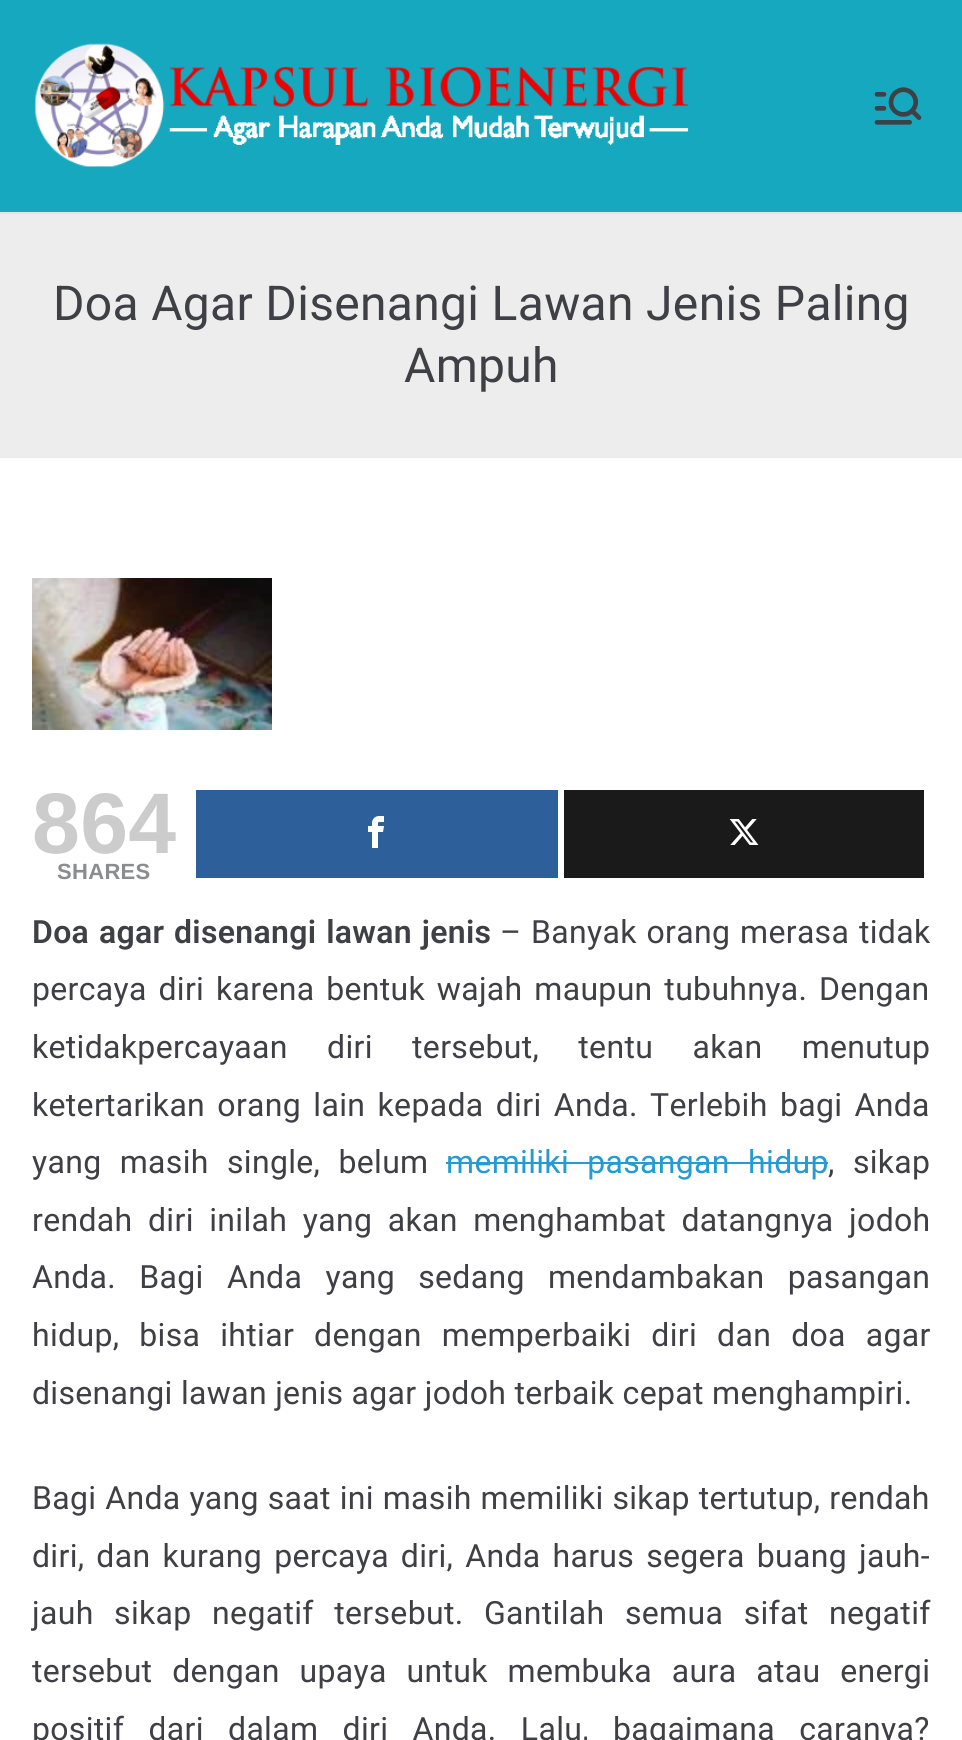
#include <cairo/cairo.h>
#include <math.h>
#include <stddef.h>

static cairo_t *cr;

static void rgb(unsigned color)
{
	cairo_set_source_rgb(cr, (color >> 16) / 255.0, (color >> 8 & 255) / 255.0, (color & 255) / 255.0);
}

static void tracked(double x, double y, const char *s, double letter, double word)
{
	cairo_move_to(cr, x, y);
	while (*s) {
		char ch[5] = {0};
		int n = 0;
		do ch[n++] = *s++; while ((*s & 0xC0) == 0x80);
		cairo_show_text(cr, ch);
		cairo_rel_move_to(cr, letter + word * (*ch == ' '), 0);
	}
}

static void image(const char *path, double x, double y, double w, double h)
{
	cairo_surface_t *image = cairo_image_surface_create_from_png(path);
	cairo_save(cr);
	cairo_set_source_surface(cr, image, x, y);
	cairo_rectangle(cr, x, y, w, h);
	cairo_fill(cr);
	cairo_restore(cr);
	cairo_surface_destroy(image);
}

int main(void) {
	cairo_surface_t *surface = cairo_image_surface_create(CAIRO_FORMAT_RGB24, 962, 1740);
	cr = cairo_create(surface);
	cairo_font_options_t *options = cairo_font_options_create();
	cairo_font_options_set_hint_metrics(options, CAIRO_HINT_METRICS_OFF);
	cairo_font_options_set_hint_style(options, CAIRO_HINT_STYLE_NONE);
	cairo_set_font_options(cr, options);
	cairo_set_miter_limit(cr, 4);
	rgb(0xe4e4e7);
	cairo_paint(cr);
	rgb(0x16a8bf);
	cairo_rectangle(cr, 0, 0, 962, 212);
	cairo_fill(cr);
	image("img/1.png", 35, 43, 654, 124);
	image("img/2.png", 874, 87, 48, 38);
	rgb(0xededed);
	cairo_rectangle(cr, 0, 214, 962, 244);
	cairo_fill(cr);
	rgb(0xffffff);
	cairo_rectangle(cr, 0, 458, 962, 1282);
	cairo_fill(cr);
	image("img/3.png", 32, 578, 240, 152);
	rgb(0x2d5f9a);
	cairo_rectangle(cr, 196, 790, 362, 88);
	cairo_fill(cr);
	image("img/4.png", 368, 816, 16, 32);
	rgb(0x1a1a1a);
	cairo_rectangle(cr, 564, 790, 360, 88);
	cairo_fill(cr);
	image("img/5.png", 729, 819, 30, 26);
	rgb(0x269bd1);
	cairo_rectangle(cr, 446, 1162, 382, 2);
	cairo_fill(cr);
	cairo_select_font_face(cr, "Roboto", CAIRO_FONT_SLANT_NORMAL, CAIRO_FONT_WEIGHT_NORMAL);
	cairo_set_font_size(cr, 48);
	rgb(0x3f3f46);
	tracked(53, 320, "Doa Agar Disenangi Lawan Jenis Paling", 0.32, 0);
	tracked(404, 382, "Ampuh", 0.32, 0);
	cairo_select_font_face(cr, "Liberation Sans", CAIRO_FONT_SLANT_NORMAL, CAIRO_FONT_WEIGHT_BOLD);
	cairo_set_font_size(cr, 86);
	rgb(0xcccccc);
	tracked(32, 853, "864", 0.32, 0);
	cairo_set_font_size(cr, 22);
	rgb(0x8a8c8e);
	tracked(57, 879, "SHARES", 0.32, 0);
	cairo_select_font_face(cr, "Roboto SemiBold", CAIRO_FONT_SLANT_NORMAL, CAIRO_FONT_WEIGHT_NORMAL);
	cairo_set_font_size(cr, 32);
	rgb(0x3f3f46);
	tracked(32, 943, "Doa agar disenangi lawan jenis", 0.32, 1.5);
	cairo_select_font_face(cr, "Roboto", CAIRO_FONT_SLANT_NORMAL, CAIRO_FONT_WEIGHT_NORMAL);
	tracked(500, 943, "– Banyak orang merasa tidak", 0.32, 1.5);
	tracked(32, 1000, "percaya diri karena bentuk wajah maupun tubuhnya. Dengan", 0.32, 3.5);
	tracked(32, 1058, "ketidakpercayaan diri tersebut, tentu akan menutup", 0.32, 31);
	tracked(32, 1116, "ketertarikan orang lain kepada diri Anda. Terlebih bagi Anda", 0.32, 4);
	tracked(32, 1173, "yang masih single, belum", 0.32, 10);
	rgb(0x269bd1);
	tracked(446, 1173, "memiliki pasangan hidup", 0.32, 10);
	rgb(0x3f3f46);
	tracked(828, 1173, ", sikap", 0.32, 10);
	tracked(32, 1231, "rendah diri inilah yang akan menghambat datangnya jodoh", 0.32, 7.25);
	tracked(32, 1288, "Anda. Bagi Anda yang sedang mendambakan pasangan", 0.32, 15);
	tracked(32, 1346, "hidup, bisa ihtiar dengan memperbaiki diri dan doa agar", 0.32, 11.75);
	tracked(32, 1404, "disenangi lawan jenis agar jodoh terbaik cepat menghampiri.", 0.32, 0);
	tracked(32, 1509, "Bagi Anda yang saat ini masih memiliki sikap tertutup, rendah", 0.32, 0.6);
	tracked(32, 1567, "diri, dan kurang percaya diri, Anda harus segera buang jauh-", 0.32, 3.75);
	tracked(32, 1624, "jauh sikap negatif tersebut. Gantilah semua sifat negatif", 0.32, 12.25);
	tracked(32, 1682, "tersebut dengan upaya untuk membuka aura atau energi", 0.32, 11.5);
	tracked(32, 1740, "positif dari dalam diri Anda. Lalu, bagaimana caranya?", 0.32, 16);
	cairo_surface_write_to_png(surface, "page.png");
	cairo_font_options_destroy(options);
	cairo_destroy(cr);
	cairo_surface_destroy(surface);
	return 0;
}
